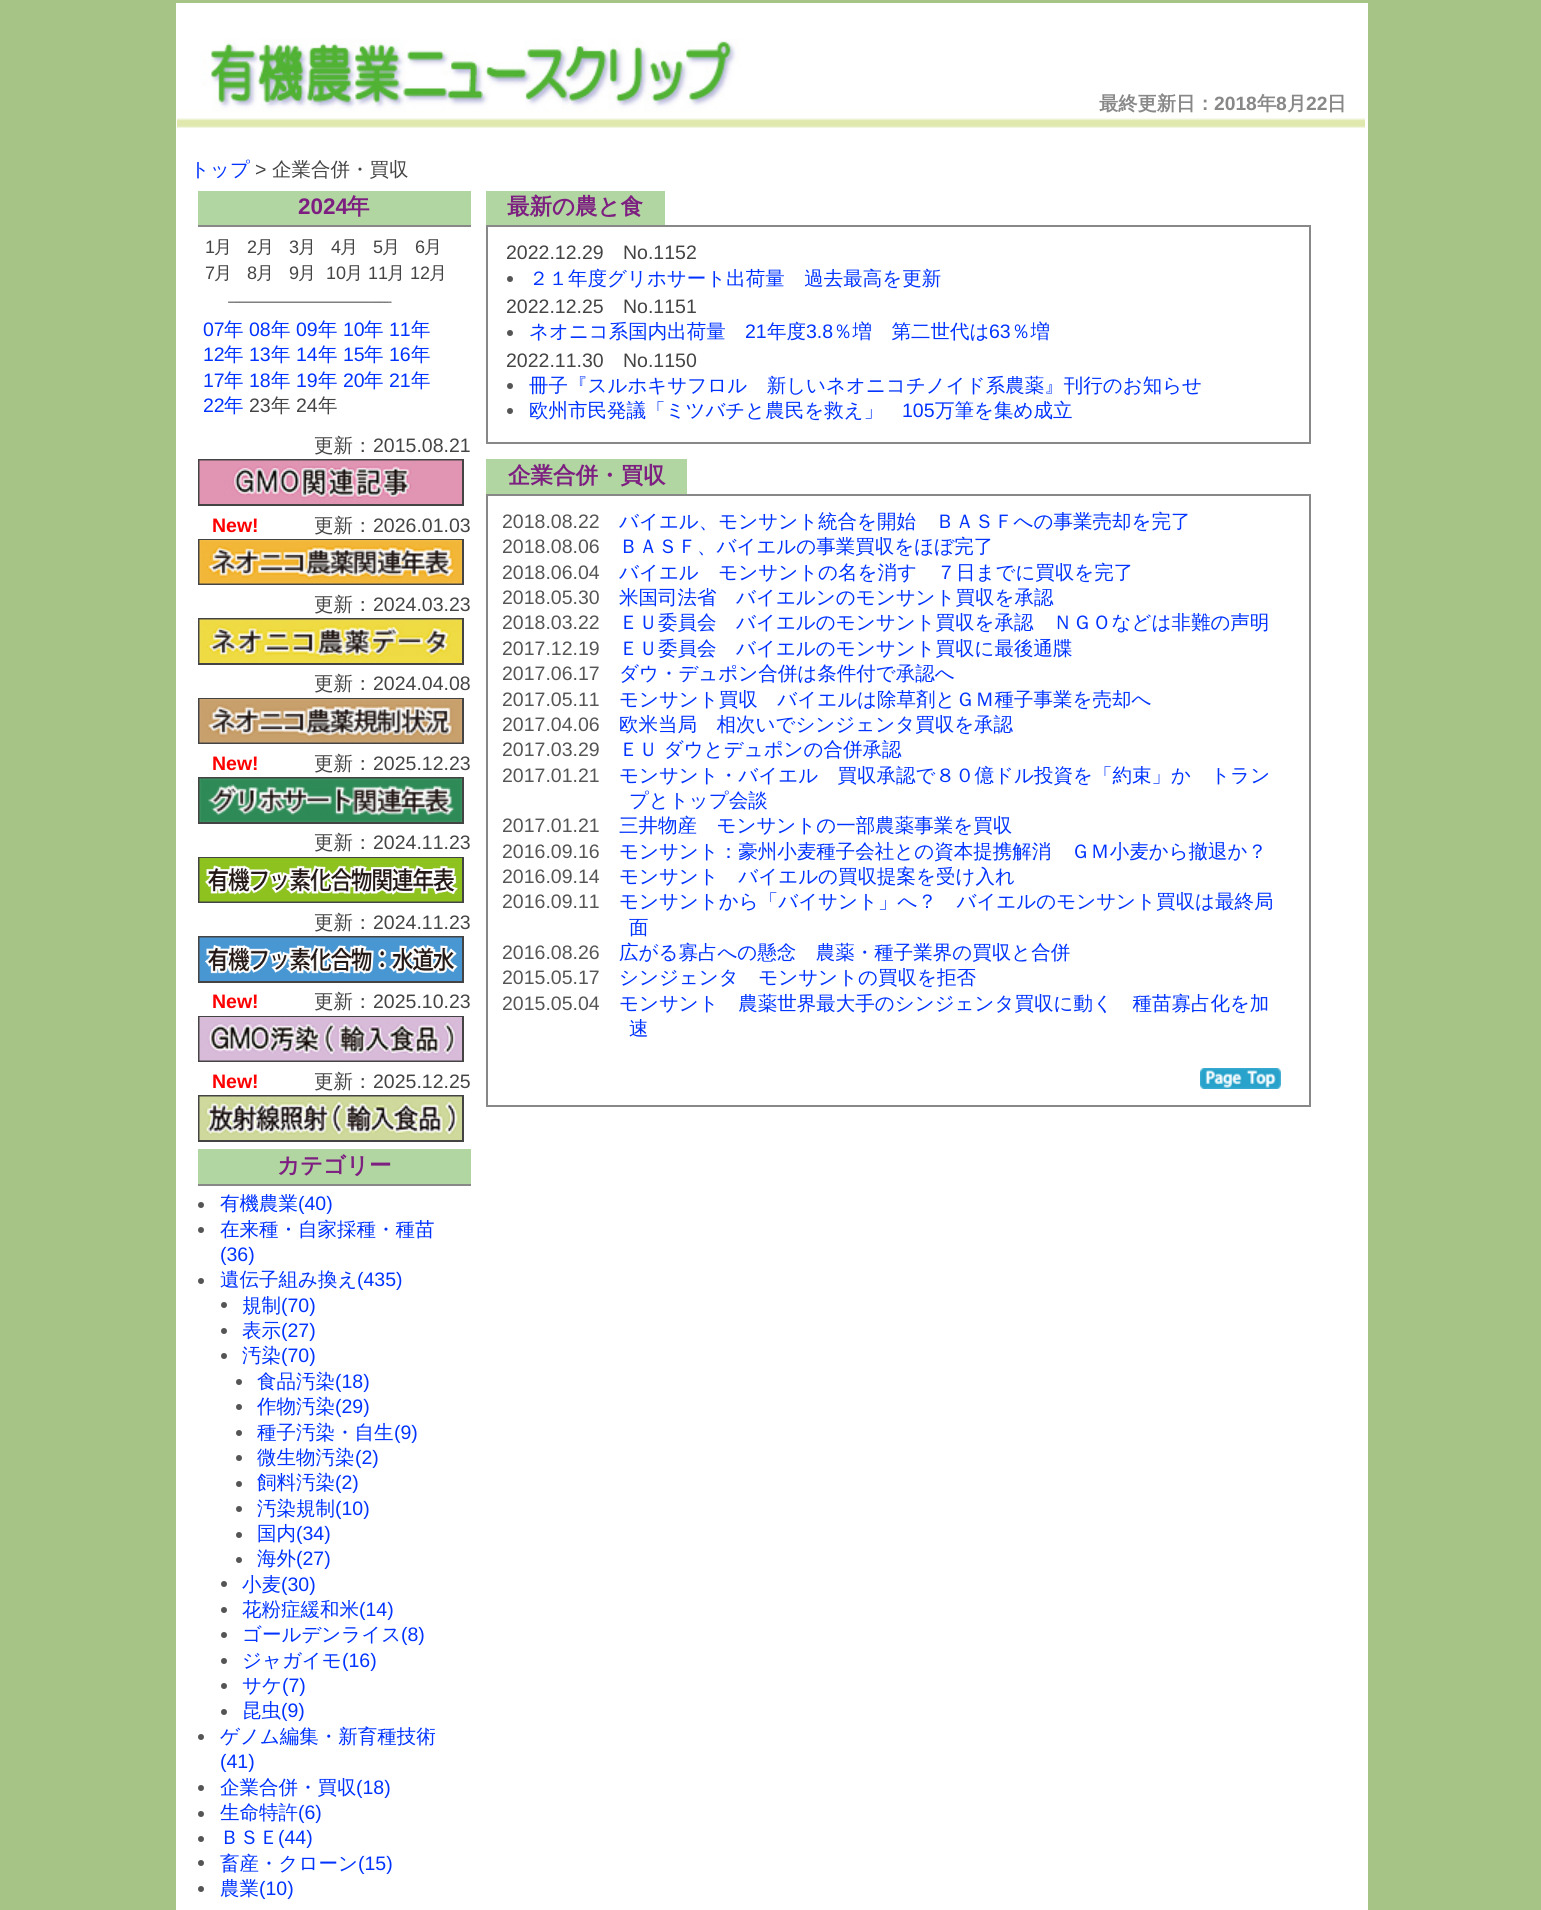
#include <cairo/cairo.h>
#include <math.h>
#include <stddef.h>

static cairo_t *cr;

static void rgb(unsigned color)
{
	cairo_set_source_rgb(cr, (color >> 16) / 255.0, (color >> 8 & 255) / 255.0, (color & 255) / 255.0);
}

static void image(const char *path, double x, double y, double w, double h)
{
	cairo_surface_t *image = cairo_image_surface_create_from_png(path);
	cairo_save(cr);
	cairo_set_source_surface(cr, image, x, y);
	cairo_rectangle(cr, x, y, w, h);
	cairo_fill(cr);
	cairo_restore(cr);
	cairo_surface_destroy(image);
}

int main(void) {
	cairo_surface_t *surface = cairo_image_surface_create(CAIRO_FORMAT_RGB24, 1541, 1910);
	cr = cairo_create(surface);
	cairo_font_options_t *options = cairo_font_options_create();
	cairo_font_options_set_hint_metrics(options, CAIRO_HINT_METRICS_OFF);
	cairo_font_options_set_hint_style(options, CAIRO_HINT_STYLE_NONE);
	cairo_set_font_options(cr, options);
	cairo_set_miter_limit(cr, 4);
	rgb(0xa6c486);
	cairo_paint(cr);
	rgb(0xffffff);
	cairo_rectangle(cr, 176, 3, 1192, 1907);
	cairo_fill(cr);
	image("img/1.png", 177, 39, 1188, 89);
	rgb(0xb1d6a1);
	cairo_rectangle(cr, 198, 191, 273, 34);
	cairo_fill(cr);
	rgb(0x888888);
	cairo_rectangle(cr, 198, 225, 273, 2);
	cairo_fill(cr);
	image("img/2.png", 228, 301, 164, 2);
	cairo_rectangle(cr, 199, 460, 264, 45);
	rgb(0x444444);
	cairo_stroke(cr);
	image("img/3.png", 199, 460, 263, 44);
	cairo_rectangle(cr, 199, 540, 264, 44);
	cairo_stroke(cr);
	image("img/4.png", 199, 540, 263, 44);
	cairo_rectangle(cr, 199, 619, 264, 45);
	cairo_stroke(cr);
	image("img/5.png", 199, 619, 263, 44);
	cairo_rectangle(cr, 199, 699, 264, 44);
	cairo_stroke(cr);
	image("img/6.png", 199, 699, 263, 44);
	cairo_rectangle(cr, 199, 778, 264, 45);
	cairo_stroke(cr);
	image("img/7.png", 199, 778, 263, 44);
	cairo_rectangle(cr, 199, 858, 264, 44);
	cairo_stroke(cr);
	image("img/8.png", 199, 858, 263, 44);
	cairo_rectangle(cr, 199, 937, 264, 45);
	cairo_stroke(cr);
	image("img/9.png", 199, 937, 263, 44);
	cairo_rectangle(cr, 199, 1017, 264, 44);
	cairo_stroke(cr);
	image("img/10.png", 199, 1017, 263, 44);
	cairo_rectangle(cr, 199, 1096, 264, 45);
	cairo_stroke(cr);
	image("img/11.png", 199, 1096, 263, 44);
	rgb(0xb1d6a1);
	cairo_rectangle(cr, 198, 1149, 273, 35);
	cairo_fill(cr);
	rgb(0x888888);
	cairo_rectangle(cr, 198, 1184, 273, 2);
	cairo_fill(cr);
	rgb(0x555555);
	cairo_arc(cr, 201, 1205, 3, 0, 2 * M_PI);
	cairo_fill(cr);
	cairo_arc(cr, 201, 1230, 3, 0, 2 * M_PI);
	cairo_fill(cr);
	cairo_arc(cr, 201, 1281, 3, 0, 2 * M_PI);
	cairo_fill(cr);
	cairo_arc(cr, 224, 1305, 3, 0, 2 * M_PI);
	cairo_fill(cr);
	cairo_arc(cr, 224, 1331, 3, 0, 2 * M_PI);
	cairo_fill(cr);
	cairo_arc(cr, 224, 1356, 3, 0, 2 * M_PI);
	cairo_fill(cr);
	cairo_arc(cr, 239, 1382, 3, 0, 2 * M_PI);
	cairo_fill(cr);
	cairo_arc(cr, 239, 1407, 3, 0, 2 * M_PI);
	cairo_fill(cr);
	cairo_arc(cr, 239, 1433, 3, 0, 2 * M_PI);
	cairo_fill(cr);
	cairo_arc(cr, 239, 1458, 3, 0, 2 * M_PI);
	cairo_fill(cr);
	cairo_arc(cr, 239, 1484, 3, 0, 2 * M_PI);
	cairo_fill(cr);
	cairo_arc(cr, 239, 1509, 3, 0, 2 * M_PI);
	cairo_fill(cr);
	cairo_arc(cr, 239, 1535, 3, 0, 2 * M_PI);
	cairo_fill(cr);
	cairo_arc(cr, 239, 1560, 3, 0, 2 * M_PI);
	cairo_fill(cr);
	cairo_arc(cr, 224, 1584, 3, 0, 2 * M_PI);
	cairo_fill(cr);
	cairo_arc(cr, 224, 1610, 3, 0, 2 * M_PI);
	cairo_fill(cr);
	cairo_arc(cr, 224, 1635, 3, 0, 2 * M_PI);
	cairo_fill(cr);
	cairo_arc(cr, 224, 1661, 3, 0, 2 * M_PI);
	cairo_fill(cr);
	cairo_arc(cr, 224, 1686, 3, 0, 2 * M_PI);
	cairo_fill(cr);
	cairo_arc(cr, 224, 1712, 3, 0, 2 * M_PI);
	cairo_fill(cr);
	cairo_arc(cr, 201, 1737, 3, 0, 2 * M_PI);
	cairo_fill(cr);
	cairo_arc(cr, 201, 1788, 3, 0, 2 * M_PI);
	cairo_fill(cr);
	cairo_arc(cr, 201, 1814, 3, 0, 2 * M_PI);
	cairo_fill(cr);
	cairo_arc(cr, 201, 1839, 3, 0, 2 * M_PI);
	cairo_fill(cr);
	cairo_arc(cr, 201, 1863, 3, 0, 2 * M_PI);
	cairo_fill(cr);
	cairo_arc(cr, 201, 1889, 3, 0, 2 * M_PI);
	cairo_fill(cr);
	rgb(0xb1d6a1);
	cairo_rectangle(cr, 486, 191, 179, 34);
	cairo_fill(cr);
	cairo_rectangle(cr, 487, 226, 823, 217);
	rgb(0x888888);
	cairo_stroke(cr);
	rgb(0x555555);
	cairo_arc(cr, 510, 279, 3, 0, 2 * M_PI);
	cairo_fill(cr);
	cairo_arc(cr, 510, 333, 3, 0, 2 * M_PI);
	cairo_fill(cr);
	cairo_arc(cr, 510, 386, 3, 0, 2 * M_PI);
	cairo_fill(cr);
	cairo_arc(cr, 510, 411, 3, 0, 2 * M_PI);
	cairo_fill(cr);
	rgb(0xb1d6a1);
	cairo_rectangle(cr, 486, 459, 201, 35);
	cairo_fill(cr);
	cairo_rectangle(cr, 487, 495, 823, 611);
	rgb(0x888888);
	cairo_stroke(cr);
	image("img/12.png", 1200, 1068, 81, 21);
	cairo_select_font_face(cr, "WenQuanYi Zen Hei", CAIRO_FONT_SLANT_NORMAL, CAIRO_FONT_WEIGHT_BOLD);
	cairo_set_font_size(cr, 19.25);
	cairo_move_to(cr, 1099, 110);
	cairo_show_text(cr, "最終更新日：");
	cairo_select_font_face(cr, "Liberation Sans", CAIRO_FONT_SLANT_NORMAL, CAIRO_FONT_WEIGHT_BOLD);
	cairo_move_to(cr, 1214, 110);
	cairo_show_text(cr, "2018");
	cairo_select_font_face(cr, "WenQuanYi Zen Hei", CAIRO_FONT_SLANT_NORMAL, CAIRO_FONT_WEIGHT_BOLD);
	cairo_move_to(cr, 1257, 110);
	cairo_show_text(cr, "年");
	cairo_select_font_face(cr, "Liberation Sans", CAIRO_FONT_SLANT_NORMAL, CAIRO_FONT_WEIGHT_BOLD);
	cairo_move_to(cr, 1276, 110);
	cairo_show_text(cr, "8");
	cairo_select_font_face(cr, "WenQuanYi Zen Hei", CAIRO_FONT_SLANT_NORMAL, CAIRO_FONT_WEIGHT_BOLD);
	cairo_move_to(cr, 1287, 110);
	cairo_show_text(cr, "月");
	cairo_select_font_face(cr, "Liberation Sans", CAIRO_FONT_SLANT_NORMAL, CAIRO_FONT_WEIGHT_BOLD);
	cairo_move_to(cr, 1306, 110);
	cairo_show_text(cr, "22");
	cairo_select_font_face(cr, "WenQuanYi Zen Hei", CAIRO_FONT_SLANT_NORMAL, CAIRO_FONT_WEIGHT_BOLD);
	cairo_move_to(cr, 1327, 110);
	cairo_show_text(cr, "日");
	cairo_select_font_face(cr, "WenQuanYi Zen Hei Medium", CAIRO_FONT_SLANT_NORMAL, CAIRO_FONT_WEIGHT_NORMAL);
	cairo_set_font_size(cr, 19.5);
	rgb(0x0033ff);
	cairo_move_to(cr, 190, 176);
	cairo_show_text(cr, "トップ");
	cairo_select_font_face(cr, "Liberation Sans", CAIRO_FONT_SLANT_NORMAL, CAIRO_FONT_WEIGHT_NORMAL);
	rgb(0x444444);
	cairo_move_to(cr, 255, 176);
	cairo_show_text(cr, ">");
	cairo_select_font_face(cr, "WenQuanYi Zen Hei Medium", CAIRO_FONT_SLANT_NORMAL, CAIRO_FONT_WEIGHT_NORMAL);
	cairo_move_to(cr, 272, 176);
	cairo_show_text(cr, "企業合併・買収");
	cairo_select_font_face(cr, "Liberation Sans", CAIRO_FONT_SLANT_NORMAL, CAIRO_FONT_WEIGHT_BOLD);
	cairo_set_font_size(cr, 22.5);
	rgb(0x7d1f81);
	cairo_move_to(cr, 298, 214);
	cairo_show_text(cr, "2024");
	cairo_select_font_face(cr, "WenQuanYi Zen Hei", CAIRO_FONT_SLANT_NORMAL, CAIRO_FONT_WEIGHT_BOLD);
	cairo_move_to(cr, 347, 214);
	cairo_show_text(cr, "年");
	cairo_select_font_face(cr, "Liberation Sans", CAIRO_FONT_SLANT_NORMAL, CAIRO_FONT_WEIGHT_NORMAL);
	cairo_set_font_size(cr, 18);
	rgb(0x444444);
	cairo_move_to(cr, 205, 253);
	cairo_show_text(cr, "1");
	cairo_select_font_face(cr, "WenQuanYi Zen Hei Medium", CAIRO_FONT_SLANT_NORMAL, CAIRO_FONT_WEIGHT_NORMAL);
	cairo_move_to(cr, 214, 253);
	cairo_show_text(cr, "月");
	cairo_select_font_face(cr, "Liberation Sans", CAIRO_FONT_SLANT_NORMAL, CAIRO_FONT_WEIGHT_NORMAL);
	cairo_move_to(cr, 247, 253);
	cairo_show_text(cr, "2");
	cairo_select_font_face(cr, "WenQuanYi Zen Hei Medium", CAIRO_FONT_SLANT_NORMAL, CAIRO_FONT_WEIGHT_NORMAL);
	cairo_move_to(cr, 256, 253);
	cairo_show_text(cr, "月");
	cairo_select_font_face(cr, "Liberation Sans", CAIRO_FONT_SLANT_NORMAL, CAIRO_FONT_WEIGHT_NORMAL);
	cairo_move_to(cr, 289, 253);
	cairo_show_text(cr, "3");
	cairo_select_font_face(cr, "WenQuanYi Zen Hei Medium", CAIRO_FONT_SLANT_NORMAL, CAIRO_FONT_WEIGHT_NORMAL);
	cairo_move_to(cr, 298, 253);
	cairo_show_text(cr, "月");
	cairo_select_font_face(cr, "Liberation Sans", CAIRO_FONT_SLANT_NORMAL, CAIRO_FONT_WEIGHT_NORMAL);
	cairo_move_to(cr, 331, 253);
	cairo_show_text(cr, "4");
	cairo_select_font_face(cr, "WenQuanYi Zen Hei Medium", CAIRO_FONT_SLANT_NORMAL, CAIRO_FONT_WEIGHT_NORMAL);
	cairo_move_to(cr, 340, 253);
	cairo_show_text(cr, "月");
	cairo_select_font_face(cr, "Liberation Sans", CAIRO_FONT_SLANT_NORMAL, CAIRO_FONT_WEIGHT_NORMAL);
	cairo_move_to(cr, 373, 253);
	cairo_show_text(cr, "5");
	cairo_select_font_face(cr, "WenQuanYi Zen Hei Medium", CAIRO_FONT_SLANT_NORMAL, CAIRO_FONT_WEIGHT_NORMAL);
	cairo_move_to(cr, 382, 253);
	cairo_show_text(cr, "月");
	cairo_select_font_face(cr, "Liberation Sans", CAIRO_FONT_SLANT_NORMAL, CAIRO_FONT_WEIGHT_NORMAL);
	cairo_move_to(cr, 415, 253);
	cairo_show_text(cr, "6");
	cairo_select_font_face(cr, "WenQuanYi Zen Hei Medium", CAIRO_FONT_SLANT_NORMAL, CAIRO_FONT_WEIGHT_NORMAL);
	cairo_move_to(cr, 424, 253);
	cairo_show_text(cr, "月");
	cairo_select_font_face(cr, "Liberation Sans", CAIRO_FONT_SLANT_NORMAL, CAIRO_FONT_WEIGHT_NORMAL);
	cairo_move_to(cr, 205, 279);
	cairo_show_text(cr, "7");
	cairo_select_font_face(cr, "WenQuanYi Zen Hei Medium", CAIRO_FONT_SLANT_NORMAL, CAIRO_FONT_WEIGHT_NORMAL);
	cairo_move_to(cr, 214, 279);
	cairo_show_text(cr, "月");
	cairo_select_font_face(cr, "Liberation Sans", CAIRO_FONT_SLANT_NORMAL, CAIRO_FONT_WEIGHT_NORMAL);
	cairo_move_to(cr, 247, 279);
	cairo_show_text(cr, "8");
	cairo_select_font_face(cr, "WenQuanYi Zen Hei Medium", CAIRO_FONT_SLANT_NORMAL, CAIRO_FONT_WEIGHT_NORMAL);
	cairo_move_to(cr, 256, 279);
	cairo_show_text(cr, "月");
	cairo_select_font_face(cr, "Liberation Sans", CAIRO_FONT_SLANT_NORMAL, CAIRO_FONT_WEIGHT_NORMAL);
	cairo_move_to(cr, 289, 279);
	cairo_show_text(cr, "9");
	cairo_select_font_face(cr, "WenQuanYi Zen Hei Medium", CAIRO_FONT_SLANT_NORMAL, CAIRO_FONT_WEIGHT_NORMAL);
	cairo_move_to(cr, 298, 279);
	cairo_show_text(cr, "月");
	cairo_select_font_face(cr, "Liberation Sans", CAIRO_FONT_SLANT_NORMAL, CAIRO_FONT_WEIGHT_NORMAL);
	cairo_move_to(cr, 326, 279);
	cairo_show_text(cr, "10");
	cairo_select_font_face(cr, "WenQuanYi Zen Hei Medium", CAIRO_FONT_SLANT_NORMAL, CAIRO_FONT_WEIGHT_NORMAL);
	cairo_move_to(cr, 345, 279);
	cairo_show_text(cr, "月");
	cairo_select_font_face(cr, "Liberation Sans", CAIRO_FONT_SLANT_NORMAL, CAIRO_FONT_WEIGHT_NORMAL);
	cairo_move_to(cr, 368, 279);
	cairo_show_text(cr, "11");
	cairo_select_font_face(cr, "WenQuanYi Zen Hei Medium", CAIRO_FONT_SLANT_NORMAL, CAIRO_FONT_WEIGHT_NORMAL);
	cairo_move_to(cr, 387, 279);
	cairo_show_text(cr, "月");
	cairo_select_font_face(cr, "Liberation Sans", CAIRO_FONT_SLANT_NORMAL, CAIRO_FONT_WEIGHT_NORMAL);
	cairo_move_to(cr, 410, 279);
	cairo_show_text(cr, "12");
	cairo_select_font_face(cr, "WenQuanYi Zen Hei Medium", CAIRO_FONT_SLANT_NORMAL, CAIRO_FONT_WEIGHT_NORMAL);
	cairo_move_to(cr, 429, 279);
	cairo_show_text(cr, "月");
	cairo_select_font_face(cr, "Liberation Sans", CAIRO_FONT_SLANT_NORMAL, CAIRO_FONT_WEIGHT_NORMAL);
	cairo_set_font_size(cr, 19.5);
	rgb(0x0033ff);
	cairo_move_to(cr, 203, 336);
	cairo_show_text(cr, "07");
	cairo_select_font_face(cr, "WenQuanYi Zen Hei Medium", CAIRO_FONT_SLANT_NORMAL, CAIRO_FONT_WEIGHT_NORMAL);
	cairo_move_to(cr, 224, 336);
	cairo_show_text(cr, "年");
	cairo_select_font_face(cr, "Liberation Sans", CAIRO_FONT_SLANT_NORMAL, CAIRO_FONT_WEIGHT_NORMAL);
	cairo_move_to(cr, 249, 336);
	cairo_show_text(cr, "08");
	cairo_select_font_face(cr, "WenQuanYi Zen Hei Medium", CAIRO_FONT_SLANT_NORMAL, CAIRO_FONT_WEIGHT_NORMAL);
	cairo_move_to(cr, 271, 336);
	cairo_show_text(cr, "年");
	cairo_select_font_face(cr, "Liberation Sans", CAIRO_FONT_SLANT_NORMAL, CAIRO_FONT_WEIGHT_NORMAL);
	cairo_move_to(cr, 296, 336);
	cairo_show_text(cr, "09");
	cairo_select_font_face(cr, "WenQuanYi Zen Hei Medium", CAIRO_FONT_SLANT_NORMAL, CAIRO_FONT_WEIGHT_NORMAL);
	cairo_move_to(cr, 318, 336);
	cairo_show_text(cr, "年");
	cairo_select_font_face(cr, "Liberation Sans", CAIRO_FONT_SLANT_NORMAL, CAIRO_FONT_WEIGHT_NORMAL);
	cairo_move_to(cr, 343, 336);
	cairo_show_text(cr, "10");
	cairo_select_font_face(cr, "WenQuanYi Zen Hei Medium", CAIRO_FONT_SLANT_NORMAL, CAIRO_FONT_WEIGHT_NORMAL);
	cairo_move_to(cr, 364, 336);
	cairo_show_text(cr, "年");
	cairo_select_font_face(cr, "Liberation Sans", CAIRO_FONT_SLANT_NORMAL, CAIRO_FONT_WEIGHT_NORMAL);
	cairo_move_to(cr, 389, 336);
	cairo_show_text(cr, "11");
	cairo_select_font_face(cr, "WenQuanYi Zen Hei Medium", CAIRO_FONT_SLANT_NORMAL, CAIRO_FONT_WEIGHT_NORMAL);
	cairo_move_to(cr, 411, 336);
	cairo_show_text(cr, "年");
	cairo_select_font_face(cr, "Liberation Sans", CAIRO_FONT_SLANT_NORMAL, CAIRO_FONT_WEIGHT_NORMAL);
	cairo_move_to(cr, 203, 361);
	cairo_show_text(cr, "12");
	cairo_select_font_face(cr, "WenQuanYi Zen Hei Medium", CAIRO_FONT_SLANT_NORMAL, CAIRO_FONT_WEIGHT_NORMAL);
	cairo_move_to(cr, 224, 361);
	cairo_show_text(cr, "年");
	cairo_select_font_face(cr, "Liberation Sans", CAIRO_FONT_SLANT_NORMAL, CAIRO_FONT_WEIGHT_NORMAL);
	cairo_move_to(cr, 249, 361);
	cairo_show_text(cr, "13");
	cairo_select_font_face(cr, "WenQuanYi Zen Hei Medium", CAIRO_FONT_SLANT_NORMAL, CAIRO_FONT_WEIGHT_NORMAL);
	cairo_move_to(cr, 271, 361);
	cairo_show_text(cr, "年");
	cairo_select_font_face(cr, "Liberation Sans", CAIRO_FONT_SLANT_NORMAL, CAIRO_FONT_WEIGHT_NORMAL);
	cairo_move_to(cr, 296, 361);
	cairo_show_text(cr, "14");
	cairo_select_font_face(cr, "WenQuanYi Zen Hei Medium", CAIRO_FONT_SLANT_NORMAL, CAIRO_FONT_WEIGHT_NORMAL);
	cairo_move_to(cr, 318, 361);
	cairo_show_text(cr, "年");
	cairo_select_font_face(cr, "Liberation Sans", CAIRO_FONT_SLANT_NORMAL, CAIRO_FONT_WEIGHT_NORMAL);
	cairo_move_to(cr, 343, 361);
	cairo_show_text(cr, "15");
	cairo_select_font_face(cr, "WenQuanYi Zen Hei Medium", CAIRO_FONT_SLANT_NORMAL, CAIRO_FONT_WEIGHT_NORMAL);
	cairo_move_to(cr, 364, 361);
	cairo_show_text(cr, "年");
	cairo_select_font_face(cr, "Liberation Sans", CAIRO_FONT_SLANT_NORMAL, CAIRO_FONT_WEIGHT_NORMAL);
	cairo_move_to(cr, 389, 361);
	cairo_show_text(cr, "16");
	cairo_select_font_face(cr, "WenQuanYi Zen Hei Medium", CAIRO_FONT_SLANT_NORMAL, CAIRO_FONT_WEIGHT_NORMAL);
	cairo_move_to(cr, 411, 361);
	cairo_show_text(cr, "年");
	cairo_select_font_face(cr, "Liberation Sans", CAIRO_FONT_SLANT_NORMAL, CAIRO_FONT_WEIGHT_NORMAL);
	cairo_move_to(cr, 203, 387);
	cairo_show_text(cr, "17");
	cairo_select_font_face(cr, "WenQuanYi Zen Hei Medium", CAIRO_FONT_SLANT_NORMAL, CAIRO_FONT_WEIGHT_NORMAL);
	cairo_move_to(cr, 224, 387);
	cairo_show_text(cr, "年");
	cairo_select_font_face(cr, "Liberation Sans", CAIRO_FONT_SLANT_NORMAL, CAIRO_FONT_WEIGHT_NORMAL);
	cairo_move_to(cr, 249, 387);
	cairo_show_text(cr, "18");
	cairo_select_font_face(cr, "WenQuanYi Zen Hei Medium", CAIRO_FONT_SLANT_NORMAL, CAIRO_FONT_WEIGHT_NORMAL);
	cairo_move_to(cr, 271, 387);
	cairo_show_text(cr, "年");
	cairo_select_font_face(cr, "Liberation Sans", CAIRO_FONT_SLANT_NORMAL, CAIRO_FONT_WEIGHT_NORMAL);
	cairo_move_to(cr, 296, 387);
	cairo_show_text(cr, "19");
	cairo_select_font_face(cr, "WenQuanYi Zen Hei Medium", CAIRO_FONT_SLANT_NORMAL, CAIRO_FONT_WEIGHT_NORMAL);
	cairo_move_to(cr, 318, 387);
	cairo_show_text(cr, "年");
	cairo_select_font_face(cr, "Liberation Sans", CAIRO_FONT_SLANT_NORMAL, CAIRO_FONT_WEIGHT_NORMAL);
	cairo_move_to(cr, 343, 387);
	cairo_show_text(cr, "20");
	cairo_select_font_face(cr, "WenQuanYi Zen Hei Medium", CAIRO_FONT_SLANT_NORMAL, CAIRO_FONT_WEIGHT_NORMAL);
	cairo_move_to(cr, 364, 387);
	cairo_show_text(cr, "年");
	cairo_select_font_face(cr, "Liberation Sans", CAIRO_FONT_SLANT_NORMAL, CAIRO_FONT_WEIGHT_NORMAL);
	cairo_move_to(cr, 389, 387);
	cairo_show_text(cr, "21");
	cairo_select_font_face(cr, "WenQuanYi Zen Hei Medium", CAIRO_FONT_SLANT_NORMAL, CAIRO_FONT_WEIGHT_NORMAL);
	cairo_move_to(cr, 411, 387);
	cairo_show_text(cr, "年");
	cairo_select_font_face(cr, "Liberation Sans", CAIRO_FONT_SLANT_NORMAL, CAIRO_FONT_WEIGHT_NORMAL);
	cairo_move_to(cr, 203, 412);
	cairo_show_text(cr, "22");
	cairo_select_font_face(cr, "WenQuanYi Zen Hei Medium", CAIRO_FONT_SLANT_NORMAL, CAIRO_FONT_WEIGHT_NORMAL);
	cairo_move_to(cr, 224, 412);
	cairo_show_text(cr, "年");
	cairo_select_font_face(cr, "Liberation Sans", CAIRO_FONT_SLANT_NORMAL, CAIRO_FONT_WEIGHT_NORMAL);
	rgb(0x444444);
	cairo_move_to(cr, 249, 412);
	cairo_show_text(cr, "23");
	cairo_select_font_face(cr, "WenQuanYi Zen Hei Medium", CAIRO_FONT_SLANT_NORMAL, CAIRO_FONT_WEIGHT_NORMAL);
	cairo_move_to(cr, 271, 412);
	cairo_show_text(cr, "年");
	cairo_select_font_face(cr, "Liberation Sans", CAIRO_FONT_SLANT_NORMAL, CAIRO_FONT_WEIGHT_NORMAL);
	cairo_move_to(cr, 296, 412);
	cairo_show_text(cr, "24");
	cairo_select_font_face(cr, "WenQuanYi Zen Hei Medium", CAIRO_FONT_SLANT_NORMAL, CAIRO_FONT_WEIGHT_NORMAL);
	cairo_move_to(cr, 318, 412);
	cairo_show_text(cr, "年");
	cairo_move_to(cr, 314, 452);
	cairo_show_text(cr, "更新：");
	cairo_select_font_face(cr, "Liberation Sans", CAIRO_FONT_SLANT_NORMAL, CAIRO_FONT_WEIGHT_NORMAL);
	cairo_move_to(cr, 373, 452);
	cairo_show_text(cr, "2015.08.21");
	cairo_select_font_face(cr, "Liberation Sans", CAIRO_FONT_SLANT_NORMAL, CAIRO_FONT_WEIGHT_BOLD);
	rgb(0xff0000);
	cairo_move_to(cr, 212, 532);
	cairo_show_text(cr, "New!");
	cairo_select_font_face(cr, "WenQuanYi Zen Hei Medium", CAIRO_FONT_SLANT_NORMAL, CAIRO_FONT_WEIGHT_NORMAL);
	rgb(0x444444);
	cairo_move_to(cr, 314, 532);
	cairo_show_text(cr, "更新：");
	cairo_select_font_face(cr, "Liberation Sans", CAIRO_FONT_SLANT_NORMAL, CAIRO_FONT_WEIGHT_NORMAL);
	cairo_move_to(cr, 373, 532);
	cairo_show_text(cr, "2026.01.03");
	cairo_select_font_face(cr, "WenQuanYi Zen Hei Medium", CAIRO_FONT_SLANT_NORMAL, CAIRO_FONT_WEIGHT_NORMAL);
	cairo_move_to(cr, 314, 611);
	cairo_show_text(cr, "更新：");
	cairo_select_font_face(cr, "Liberation Sans", CAIRO_FONT_SLANT_NORMAL, CAIRO_FONT_WEIGHT_NORMAL);
	cairo_move_to(cr, 373, 611);
	cairo_show_text(cr, "2024.03.23");
	cairo_select_font_face(cr, "WenQuanYi Zen Hei Medium", CAIRO_FONT_SLANT_NORMAL, CAIRO_FONT_WEIGHT_NORMAL);
	cairo_move_to(cr, 314, 690);
	cairo_show_text(cr, "更新：");
	cairo_select_font_face(cr, "Liberation Sans", CAIRO_FONT_SLANT_NORMAL, CAIRO_FONT_WEIGHT_NORMAL);
	cairo_move_to(cr, 373, 690);
	cairo_show_text(cr, "2024.04.08");
	cairo_select_font_face(cr, "Liberation Sans", CAIRO_FONT_SLANT_NORMAL, CAIRO_FONT_WEIGHT_BOLD);
	rgb(0xff0000);
	cairo_move_to(cr, 212, 770);
	cairo_show_text(cr, "New!");
	cairo_select_font_face(cr, "WenQuanYi Zen Hei Medium", CAIRO_FONT_SLANT_NORMAL, CAIRO_FONT_WEIGHT_NORMAL);
	rgb(0x444444);
	cairo_move_to(cr, 314, 770);
	cairo_show_text(cr, "更新：");
	cairo_select_font_face(cr, "Liberation Sans", CAIRO_FONT_SLANT_NORMAL, CAIRO_FONT_WEIGHT_NORMAL);
	cairo_move_to(cr, 373, 770);
	cairo_show_text(cr, "2025.12.23");
	cairo_select_font_face(cr, "WenQuanYi Zen Hei Medium", CAIRO_FONT_SLANT_NORMAL, CAIRO_FONT_WEIGHT_NORMAL);
	cairo_move_to(cr, 314, 849);
	cairo_show_text(cr, "更新：");
	cairo_select_font_face(cr, "Liberation Sans", CAIRO_FONT_SLANT_NORMAL, CAIRO_FONT_WEIGHT_NORMAL);
	cairo_move_to(cr, 373, 849);
	cairo_show_text(cr, "2024.11.23");
	cairo_select_font_face(cr, "WenQuanYi Zen Hei Medium", CAIRO_FONT_SLANT_NORMAL, CAIRO_FONT_WEIGHT_NORMAL);
	cairo_move_to(cr, 314, 929);
	cairo_show_text(cr, "更新：");
	cairo_select_font_face(cr, "Liberation Sans", CAIRO_FONT_SLANT_NORMAL, CAIRO_FONT_WEIGHT_NORMAL);
	cairo_move_to(cr, 373, 929);
	cairo_show_text(cr, "2024.11.23");
	cairo_select_font_face(cr, "Liberation Sans", CAIRO_FONT_SLANT_NORMAL, CAIRO_FONT_WEIGHT_BOLD);
	rgb(0xff0000);
	cairo_move_to(cr, 212, 1008);
	cairo_show_text(cr, "New!");
	cairo_select_font_face(cr, "WenQuanYi Zen Hei Medium", CAIRO_FONT_SLANT_NORMAL, CAIRO_FONT_WEIGHT_NORMAL);
	rgb(0x444444);
	cairo_move_to(cr, 314, 1008);
	cairo_show_text(cr, "更新：");
	cairo_select_font_face(cr, "Liberation Sans", CAIRO_FONT_SLANT_NORMAL, CAIRO_FONT_WEIGHT_NORMAL);
	cairo_move_to(cr, 373, 1008);
	cairo_show_text(cr, "2025.10.23");
	cairo_select_font_face(cr, "Liberation Sans", CAIRO_FONT_SLANT_NORMAL, CAIRO_FONT_WEIGHT_BOLD);
	rgb(0xff0000);
	cairo_move_to(cr, 212, 1088);
	cairo_show_text(cr, "New!");
	cairo_select_font_face(cr, "WenQuanYi Zen Hei Medium", CAIRO_FONT_SLANT_NORMAL, CAIRO_FONT_WEIGHT_NORMAL);
	rgb(0x444444);
	cairo_move_to(cr, 314, 1088);
	cairo_show_text(cr, "更新：");
	cairo_select_font_face(cr, "Liberation Sans", CAIRO_FONT_SLANT_NORMAL, CAIRO_FONT_WEIGHT_NORMAL);
	cairo_move_to(cr, 373, 1088);
	cairo_show_text(cr, "2025.12.25");
	cairo_select_font_face(cr, "WenQuanYi Zen Hei", CAIRO_FONT_SLANT_NORMAL, CAIRO_FONT_WEIGHT_BOLD);
	cairo_set_font_size(cr, 22.5);
	rgb(0x7d1f81);
	cairo_move_to(cr, 277, 1173);
	cairo_show_text(cr, "カテゴリー");
	cairo_select_font_face(cr, "WenQuanYi Zen Hei Medium", CAIRO_FONT_SLANT_NORMAL, CAIRO_FONT_WEIGHT_NORMAL);
	cairo_set_font_size(cr, 19.5);
	rgb(0x0033ff);
	cairo_move_to(cr, 220, 1210);
	cairo_show_text(cr, "有機農業");
	cairo_select_font_face(cr, "Liberation Sans", CAIRO_FONT_SLANT_NORMAL, CAIRO_FONT_WEIGHT_NORMAL);
	cairo_move_to(cr, 298, 1210);
	cairo_show_text(cr, "(40)");
	cairo_select_font_face(cr, "WenQuanYi Zen Hei Medium", CAIRO_FONT_SLANT_NORMAL, CAIRO_FONT_WEIGHT_NORMAL);
	cairo_move_to(cr, 220, 1236);
	cairo_show_text(cr, "在来種・自家採種・種苗");
	cairo_select_font_face(cr, "Liberation Sans", CAIRO_FONT_SLANT_NORMAL, CAIRO_FONT_WEIGHT_NORMAL);
	cairo_move_to(cr, 220, 1261);
	cairo_show_text(cr, "(36)");
	cairo_select_font_face(cr, "WenQuanYi Zen Hei Medium", CAIRO_FONT_SLANT_NORMAL, CAIRO_FONT_WEIGHT_NORMAL);
	cairo_move_to(cr, 220, 1286);
	cairo_show_text(cr, "遺伝子組み換え");
	cairo_select_font_face(cr, "Liberation Sans", CAIRO_FONT_SLANT_NORMAL, CAIRO_FONT_WEIGHT_NORMAL);
	cairo_move_to(cr, 357, 1286);
	cairo_show_text(cr, "(435)");
	cairo_select_font_face(cr, "WenQuanYi Zen Hei Medium", CAIRO_FONT_SLANT_NORMAL, CAIRO_FONT_WEIGHT_NORMAL);
	cairo_move_to(cr, 242, 1312);
	cairo_show_text(cr, "規制");
	cairo_select_font_face(cr, "Liberation Sans", CAIRO_FONT_SLANT_NORMAL, CAIRO_FONT_WEIGHT_NORMAL);
	cairo_move_to(cr, 281, 1312);
	cairo_show_text(cr, "(70)");
	cairo_select_font_face(cr, "WenQuanYi Zen Hei Medium", CAIRO_FONT_SLANT_NORMAL, CAIRO_FONT_WEIGHT_NORMAL);
	cairo_move_to(cr, 242, 1337);
	cairo_show_text(cr, "表示");
	cairo_select_font_face(cr, "Liberation Sans", CAIRO_FONT_SLANT_NORMAL, CAIRO_FONT_WEIGHT_NORMAL);
	cairo_move_to(cr, 281, 1337);
	cairo_show_text(cr, "(27)");
	cairo_select_font_face(cr, "WenQuanYi Zen Hei Medium", CAIRO_FONT_SLANT_NORMAL, CAIRO_FONT_WEIGHT_NORMAL);
	cairo_move_to(cr, 242, 1362);
	cairo_show_text(cr, "汚染");
	cairo_select_font_face(cr, "Liberation Sans", CAIRO_FONT_SLANT_NORMAL, CAIRO_FONT_WEIGHT_NORMAL);
	cairo_move_to(cr, 281, 1362);
	cairo_show_text(cr, "(70)");
	cairo_select_font_face(cr, "WenQuanYi Zen Hei Medium", CAIRO_FONT_SLANT_NORMAL, CAIRO_FONT_WEIGHT_NORMAL);
	cairo_move_to(cr, 257, 1388);
	cairo_show_text(cr, "食品汚染");
	cairo_select_font_face(cr, "Liberation Sans", CAIRO_FONT_SLANT_NORMAL, CAIRO_FONT_WEIGHT_NORMAL);
	cairo_move_to(cr, 335, 1388);
	cairo_show_text(cr, "(18)");
	cairo_select_font_face(cr, "WenQuanYi Zen Hei Medium", CAIRO_FONT_SLANT_NORMAL, CAIRO_FONT_WEIGHT_NORMAL);
	cairo_move_to(cr, 257, 1413);
	cairo_show_text(cr, "作物汚染");
	cairo_select_font_face(cr, "Liberation Sans", CAIRO_FONT_SLANT_NORMAL, CAIRO_FONT_WEIGHT_NORMAL);
	cairo_move_to(cr, 335, 1413);
	cairo_show_text(cr, "(29)");
	cairo_select_font_face(cr, "WenQuanYi Zen Hei Medium", CAIRO_FONT_SLANT_NORMAL, CAIRO_FONT_WEIGHT_NORMAL);
	cairo_move_to(cr, 257, 1439);
	cairo_show_text(cr, "種子汚染・自生");
	cairo_select_font_face(cr, "Liberation Sans", CAIRO_FONT_SLANT_NORMAL, CAIRO_FONT_WEIGHT_NORMAL);
	cairo_move_to(cr, 394, 1439);
	cairo_show_text(cr, "(9)");
	cairo_select_font_face(cr, "WenQuanYi Zen Hei Medium", CAIRO_FONT_SLANT_NORMAL, CAIRO_FONT_WEIGHT_NORMAL);
	cairo_move_to(cr, 257, 1464);
	cairo_show_text(cr, "微生物汚染");
	cairo_select_font_face(cr, "Liberation Sans", CAIRO_FONT_SLANT_NORMAL, CAIRO_FONT_WEIGHT_NORMAL);
	cairo_move_to(cr, 355, 1464);
	cairo_show_text(cr, "(2)");
	cairo_select_font_face(cr, "WenQuanYi Zen Hei Medium", CAIRO_FONT_SLANT_NORMAL, CAIRO_FONT_WEIGHT_NORMAL);
	cairo_move_to(cr, 257, 1489);
	cairo_show_text(cr, "飼料汚染");
	cairo_select_font_face(cr, "Liberation Sans", CAIRO_FONT_SLANT_NORMAL, CAIRO_FONT_WEIGHT_NORMAL);
	cairo_move_to(cr, 335, 1489);
	cairo_show_text(cr, "(2)");
	cairo_select_font_face(cr, "WenQuanYi Zen Hei Medium", CAIRO_FONT_SLANT_NORMAL, CAIRO_FONT_WEIGHT_NORMAL);
	cairo_move_to(cr, 257, 1515);
	cairo_show_text(cr, "汚染規制");
	cairo_select_font_face(cr, "Liberation Sans", CAIRO_FONT_SLANT_NORMAL, CAIRO_FONT_WEIGHT_NORMAL);
	cairo_move_to(cr, 335, 1515);
	cairo_show_text(cr, "(10)");
	cairo_select_font_face(cr, "WenQuanYi Zen Hei Medium", CAIRO_FONT_SLANT_NORMAL, CAIRO_FONT_WEIGHT_NORMAL);
	cairo_move_to(cr, 257, 1540);
	cairo_show_text(cr, "国内");
	cairo_select_font_face(cr, "Liberation Sans", CAIRO_FONT_SLANT_NORMAL, CAIRO_FONT_WEIGHT_NORMAL);
	cairo_move_to(cr, 296, 1540);
	cairo_show_text(cr, "(34)");
	cairo_select_font_face(cr, "WenQuanYi Zen Hei Medium", CAIRO_FONT_SLANT_NORMAL, CAIRO_FONT_WEIGHT_NORMAL);
	cairo_move_to(cr, 257, 1565);
	cairo_show_text(cr, "海外");
	cairo_select_font_face(cr, "Liberation Sans", CAIRO_FONT_SLANT_NORMAL, CAIRO_FONT_WEIGHT_NORMAL);
	cairo_move_to(cr, 296, 1565);
	cairo_show_text(cr, "(27)");
	cairo_select_font_face(cr, "WenQuanYi Zen Hei Medium", CAIRO_FONT_SLANT_NORMAL, CAIRO_FONT_WEIGHT_NORMAL);
	cairo_move_to(cr, 242, 1591);
	cairo_show_text(cr, "小麦");
	cairo_select_font_face(cr, "Liberation Sans", CAIRO_FONT_SLANT_NORMAL, CAIRO_FONT_WEIGHT_NORMAL);
	cairo_move_to(cr, 281, 1591);
	cairo_show_text(cr, "(30)");
	cairo_select_font_face(cr, "WenQuanYi Zen Hei Medium", CAIRO_FONT_SLANT_NORMAL, CAIRO_FONT_WEIGHT_NORMAL);
	cairo_move_to(cr, 242, 1616);
	cairo_show_text(cr, "花粉症緩和米");
	cairo_select_font_face(cr, "Liberation Sans", CAIRO_FONT_SLANT_NORMAL, CAIRO_FONT_WEIGHT_NORMAL);
	cairo_move_to(cr, 359, 1616);
	cairo_show_text(cr, "(14)");
	cairo_select_font_face(cr, "WenQuanYi Zen Hei Medium", CAIRO_FONT_SLANT_NORMAL, CAIRO_FONT_WEIGHT_NORMAL);
	cairo_move_to(cr, 242, 1641);
	cairo_show_text(cr, "ゴールデンライス");
	cairo_select_font_face(cr, "Liberation Sans", CAIRO_FONT_SLANT_NORMAL, CAIRO_FONT_WEIGHT_NORMAL);
	cairo_move_to(cr, 401, 1641);
	cairo_show_text(cr, "(8)");
	cairo_select_font_face(cr, "WenQuanYi Zen Hei Medium", CAIRO_FONT_SLANT_NORMAL, CAIRO_FONT_WEIGHT_NORMAL);
	cairo_move_to(cr, 242, 1667);
	cairo_show_text(cr, "ジャガイモ");
	cairo_select_font_face(cr, "Liberation Sans", CAIRO_FONT_SLANT_NORMAL, CAIRO_FONT_WEIGHT_NORMAL);
	cairo_move_to(cr, 342, 1667);
	cairo_show_text(cr, "(16)");
	cairo_select_font_face(cr, "WenQuanYi Zen Hei Medium", CAIRO_FONT_SLANT_NORMAL, CAIRO_FONT_WEIGHT_NORMAL);
	cairo_move_to(cr, 242, 1692);
	cairo_show_text(cr, "サケ");
	cairo_select_font_face(cr, "Liberation Sans", CAIRO_FONT_SLANT_NORMAL, CAIRO_FONT_WEIGHT_NORMAL);
	cairo_move_to(cr, 282, 1692);
	cairo_show_text(cr, "(7)");
	cairo_select_font_face(cr, "WenQuanYi Zen Hei Medium", CAIRO_FONT_SLANT_NORMAL, CAIRO_FONT_WEIGHT_NORMAL);
	cairo_move_to(cr, 242, 1717);
	cairo_show_text(cr, "昆虫");
	cairo_select_font_face(cr, "Liberation Sans", CAIRO_FONT_SLANT_NORMAL, CAIRO_FONT_WEIGHT_NORMAL);
	cairo_move_to(cr, 281, 1717);
	cairo_show_text(cr, "(9)");
	cairo_select_font_face(cr, "WenQuanYi Zen Hei Medium", CAIRO_FONT_SLANT_NORMAL, CAIRO_FONT_WEIGHT_NORMAL);
	cairo_move_to(cr, 220, 1743);
	cairo_show_text(cr, "ゲノム編集・新育種技術");
	cairo_select_font_face(cr, "Liberation Sans", CAIRO_FONT_SLANT_NORMAL, CAIRO_FONT_WEIGHT_NORMAL);
	cairo_move_to(cr, 220, 1768);
	cairo_show_text(cr, "(41)");
	cairo_select_font_face(cr, "WenQuanYi Zen Hei Medium", CAIRO_FONT_SLANT_NORMAL, CAIRO_FONT_WEIGHT_NORMAL);
	cairo_move_to(cr, 220, 1794);
	cairo_show_text(cr, "企業合併・買収");
	cairo_select_font_face(cr, "Liberation Sans", CAIRO_FONT_SLANT_NORMAL, CAIRO_FONT_WEIGHT_NORMAL);
	cairo_move_to(cr, 356, 1794);
	cairo_show_text(cr, "(18)");
	cairo_select_font_face(cr, "WenQuanYi Zen Hei Medium", CAIRO_FONT_SLANT_NORMAL, CAIRO_FONT_WEIGHT_NORMAL);
	cairo_move_to(cr, 220, 1819);
	cairo_show_text(cr, "生命特許");
	cairo_select_font_face(cr, "Liberation Sans", CAIRO_FONT_SLANT_NORMAL, CAIRO_FONT_WEIGHT_NORMAL);
	cairo_move_to(cr, 298, 1819);
	cairo_show_text(cr, "(6)");
	cairo_select_font_face(cr, "WenQuanYi Zen Hei Medium", CAIRO_FONT_SLANT_NORMAL, CAIRO_FONT_WEIGHT_NORMAL);
	cairo_move_to(cr, 220, 1844);
	cairo_show_text(cr, "ＢＳＥ");
	cairo_select_font_face(cr, "Liberation Sans", CAIRO_FONT_SLANT_NORMAL, CAIRO_FONT_WEIGHT_NORMAL);
	cairo_move_to(cr, 278, 1844);
	cairo_show_text(cr, "(44)");
	cairo_select_font_face(cr, "WenQuanYi Zen Hei Medium", CAIRO_FONT_SLANT_NORMAL, CAIRO_FONT_WEIGHT_NORMAL);
	cairo_move_to(cr, 220, 1870);
	cairo_show_text(cr, "畜産・クローン");
	cairo_select_font_face(cr, "Liberation Sans", CAIRO_FONT_SLANT_NORMAL, CAIRO_FONT_WEIGHT_NORMAL);
	cairo_move_to(cr, 358, 1870);
	cairo_show_text(cr, "(15)");
	cairo_select_font_face(cr, "WenQuanYi Zen Hei Medium", CAIRO_FONT_SLANT_NORMAL, CAIRO_FONT_WEIGHT_NORMAL);
	cairo_move_to(cr, 220, 1895);
	cairo_show_text(cr, "農業");
	cairo_select_font_face(cr, "Liberation Sans", CAIRO_FONT_SLANT_NORMAL, CAIRO_FONT_WEIGHT_NORMAL);
	cairo_move_to(cr, 259, 1895);
	cairo_show_text(cr, "(10)");
	cairo_select_font_face(cr, "WenQuanYi Zen Hei", CAIRO_FONT_SLANT_NORMAL, CAIRO_FONT_WEIGHT_BOLD);
	cairo_set_font_size(cr, 22.5);
	rgb(0x7d1f81);
	cairo_move_to(cr, 507, 214);
	cairo_show_text(cr, "最新の農と食");
	cairo_select_font_face(cr, "Liberation Sans", CAIRO_FONT_SLANT_NORMAL, CAIRO_FONT_WEIGHT_NORMAL);
	cairo_set_font_size(cr, 19.5);
	rgb(0x444444);
	cairo_move_to(cr, 506, 259);
	cairo_show_text(cr, "2022.12.29");
	cairo_move_to(cr, 623, 259);
	cairo_show_text(cr, "No.1152");
	cairo_select_font_face(cr, "WenQuanYi Zen Hei Medium", CAIRO_FONT_SLANT_NORMAL, CAIRO_FONT_WEIGHT_NORMAL);
	rgb(0x0033ff);
	cairo_move_to(cr, 529, 285);
	cairo_show_text(cr, "２１年度グリホサート出荷量　過去最高を更新");
	cairo_select_font_face(cr, "Liberation Sans", CAIRO_FONT_SLANT_NORMAL, CAIRO_FONT_WEIGHT_NORMAL);
	rgb(0x444444);
	cairo_move_to(cr, 506, 313);
	cairo_show_text(cr, "2022.12.25");
	cairo_move_to(cr, 623, 313);
	cairo_show_text(cr, "No.1151");
	cairo_select_font_face(cr, "WenQuanYi Zen Hei Medium", CAIRO_FONT_SLANT_NORMAL, CAIRO_FONT_WEIGHT_NORMAL);
	rgb(0x0033ff);
	cairo_move_to(cr, 529, 338);
	cairo_show_text(cr, "ネオニコ系国内出荷量");
	cairo_select_font_face(cr, "Liberation Sans", CAIRO_FONT_SLANT_NORMAL, CAIRO_FONT_WEIGHT_NORMAL);
	cairo_move_to(cr, 745, 338);
	cairo_show_text(cr, "21");
	cairo_select_font_face(cr, "WenQuanYi Zen Hei Medium", CAIRO_FONT_SLANT_NORMAL, CAIRO_FONT_WEIGHT_NORMAL);
	cairo_move_to(cr, 767, 338);
	cairo_show_text(cr, "年度");
	cairo_select_font_face(cr, "Liberation Sans", CAIRO_FONT_SLANT_NORMAL, CAIRO_FONT_WEIGHT_NORMAL);
	cairo_move_to(cr, 806, 338);
	cairo_show_text(cr, "3.8");
	cairo_select_font_face(cr, "WenQuanYi Zen Hei Medium", CAIRO_FONT_SLANT_NORMAL, CAIRO_FONT_WEIGHT_NORMAL);
	cairo_move_to(cr, 833, 338);
	cairo_show_text(cr, "％増　第二世代は");
	cairo_select_font_face(cr, "Liberation Sans", CAIRO_FONT_SLANT_NORMAL, CAIRO_FONT_WEIGHT_NORMAL);
	cairo_move_to(cr, 989, 338);
	cairo_show_text(cr, "63");
	cairo_select_font_face(cr, "WenQuanYi Zen Hei Medium", CAIRO_FONT_SLANT_NORMAL, CAIRO_FONT_WEIGHT_NORMAL);
	cairo_move_to(cr, 1011, 338);
	cairo_show_text(cr, "％増");
	cairo_select_font_face(cr, "Liberation Sans", CAIRO_FONT_SLANT_NORMAL, CAIRO_FONT_WEIGHT_NORMAL);
	rgb(0x444444);
	cairo_move_to(cr, 506, 367);
	cairo_show_text(cr, "2022.11.30");
	cairo_move_to(cr, 623, 367);
	cairo_show_text(cr, "No.1150");
	cairo_select_font_face(cr, "WenQuanYi Zen Hei Medium", CAIRO_FONT_SLANT_NORMAL, CAIRO_FONT_WEIGHT_NORMAL);
	rgb(0x0033ff);
	cairo_move_to(cr, 529, 392);
	cairo_show_text(cr, "冊子『スルホキサフロル　新しいネオニコチノイド系農薬』刊行のお知らせ");
	cairo_move_to(cr, 529, 417);
	cairo_show_text(cr, "欧州市民発議「ミツバチと農民を救え」");
	cairo_select_font_face(cr, "Liberation Sans", CAIRO_FONT_SLANT_NORMAL, CAIRO_FONT_WEIGHT_NORMAL);
	cairo_move_to(cr, 902, 417);
	cairo_show_text(cr, "105");
	cairo_select_font_face(cr, "WenQuanYi Zen Hei Medium", CAIRO_FONT_SLANT_NORMAL, CAIRO_FONT_WEIGHT_NORMAL);
	cairo_move_to(cr, 935, 417);
	cairo_show_text(cr, "万筆を集め成立");
	cairo_select_font_face(cr, "WenQuanYi Zen Hei", CAIRO_FONT_SLANT_NORMAL, CAIRO_FONT_WEIGHT_BOLD);
	cairo_set_font_size(cr, 22.5);
	rgb(0x7d1f81);
	cairo_move_to(cr, 508, 483);
	cairo_show_text(cr, "企業合併・買収");
	cairo_select_font_face(cr, "Liberation Sans", CAIRO_FONT_SLANT_NORMAL, CAIRO_FONT_WEIGHT_NORMAL);
	cairo_set_font_size(cr, 19.5);
	rgb(0x555555);
	cairo_move_to(cr, 502, 528);
	cairo_show_text(cr, "2018.08.22");
	cairo_select_font_face(cr, "WenQuanYi Zen Hei Medium", CAIRO_FONT_SLANT_NORMAL, CAIRO_FONT_WEIGHT_NORMAL);
	rgb(0x0033ff);
	cairo_move_to(cr, 619, 528);
	cairo_show_text(cr, "バイエル、モンサント統合を開始　ＢＡＳＦへの事業売却を完了");
	cairo_select_font_face(cr, "Liberation Sans", CAIRO_FONT_SLANT_NORMAL, CAIRO_FONT_WEIGHT_NORMAL);
	rgb(0x555555);
	cairo_move_to(cr, 502, 553);
	cairo_show_text(cr, "2018.08.06");
	cairo_select_font_face(cr, "WenQuanYi Zen Hei Medium", CAIRO_FONT_SLANT_NORMAL, CAIRO_FONT_WEIGHT_NORMAL);
	rgb(0x0033ff);
	cairo_move_to(cr, 619, 553);
	cairo_show_text(cr, "ＢＡＳＦ、バイエルの事業買収をほぼ完了");
	cairo_select_font_face(cr, "Liberation Sans", CAIRO_FONT_SLANT_NORMAL, CAIRO_FONT_WEIGHT_NORMAL);
	rgb(0x555555);
	cairo_move_to(cr, 502, 579);
	cairo_show_text(cr, "2018.06.04");
	cairo_select_font_face(cr, "WenQuanYi Zen Hei Medium", CAIRO_FONT_SLANT_NORMAL, CAIRO_FONT_WEIGHT_NORMAL);
	rgb(0x0033ff);
	cairo_move_to(cr, 619, 579);
	cairo_show_text(cr, "バイエル　モンサントの名を消す　７日までに買収を完了");
	cairo_select_font_face(cr, "Liberation Sans", CAIRO_FONT_SLANT_NORMAL, CAIRO_FONT_WEIGHT_NORMAL);
	rgb(0x555555);
	cairo_move_to(cr, 502, 604);
	cairo_show_text(cr, "2018.05.30");
	cairo_select_font_face(cr, "WenQuanYi Zen Hei Medium", CAIRO_FONT_SLANT_NORMAL, CAIRO_FONT_WEIGHT_NORMAL);
	rgb(0x0033ff);
	cairo_move_to(cr, 619, 604);
	cairo_show_text(cr, "米国司法省　バイエルンのモンサント買収を承認");
	cairo_select_font_face(cr, "Liberation Sans", CAIRO_FONT_SLANT_NORMAL, CAIRO_FONT_WEIGHT_NORMAL);
	rgb(0x555555);
	cairo_move_to(cr, 502, 629);
	cairo_show_text(cr, "2018.03.22");
	cairo_select_font_face(cr, "WenQuanYi Zen Hei Medium", CAIRO_FONT_SLANT_NORMAL, CAIRO_FONT_WEIGHT_NORMAL);
	rgb(0x0033ff);
	cairo_move_to(cr, 619, 629);
	cairo_show_text(cr, "ＥＵ委員会　バイエルのモンサント買収を承認　ＮＧＯなどは非難の声明");
	cairo_select_font_face(cr, "Liberation Sans", CAIRO_FONT_SLANT_NORMAL, CAIRO_FONT_WEIGHT_NORMAL);
	rgb(0x555555);
	cairo_move_to(cr, 502, 655);
	cairo_show_text(cr, "2017.12.19");
	cairo_select_font_face(cr, "WenQuanYi Zen Hei Medium", CAIRO_FONT_SLANT_NORMAL, CAIRO_FONT_WEIGHT_NORMAL);
	rgb(0x0033ff);
	cairo_move_to(cr, 619, 655);
	cairo_show_text(cr, "ＥＵ委員会　バイエルのモンサント買収に最後通牒");
	cairo_select_font_face(cr, "Liberation Sans", CAIRO_FONT_SLANT_NORMAL, CAIRO_FONT_WEIGHT_NORMAL);
	rgb(0x555555);
	cairo_move_to(cr, 502, 680);
	cairo_show_text(cr, "2017.06.17");
	cairo_select_font_face(cr, "WenQuanYi Zen Hei Medium", CAIRO_FONT_SLANT_NORMAL, CAIRO_FONT_WEIGHT_NORMAL);
	rgb(0x0033ff);
	cairo_move_to(cr, 619, 680);
	cairo_show_text(cr, "ダウ・デュポン合併は条件付で承認へ");
	cairo_select_font_face(cr, "Liberation Sans", CAIRO_FONT_SLANT_NORMAL, CAIRO_FONT_WEIGHT_NORMAL);
	rgb(0x555555);
	cairo_move_to(cr, 502, 706);
	cairo_show_text(cr, "2017.05.11");
	cairo_select_font_face(cr, "WenQuanYi Zen Hei Medium", CAIRO_FONT_SLANT_NORMAL, CAIRO_FONT_WEIGHT_NORMAL);
	rgb(0x0033ff);
	cairo_move_to(cr, 619, 706);
	cairo_show_text(cr, "モンサント買収　バイエルは除草剤とＧＭ種子事業を売却へ");
	cairo_select_font_face(cr, "Liberation Sans", CAIRO_FONT_SLANT_NORMAL, CAIRO_FONT_WEIGHT_NORMAL);
	rgb(0x555555);
	cairo_move_to(cr, 502, 731);
	cairo_show_text(cr, "2017.04.06");
	cairo_select_font_face(cr, "WenQuanYi Zen Hei Medium", CAIRO_FONT_SLANT_NORMAL, CAIRO_FONT_WEIGHT_NORMAL);
	rgb(0x0033ff);
	cairo_move_to(cr, 619, 731);
	cairo_show_text(cr, "欧米当局　相次いでシンジェンタ買収を承認");
	cairo_select_font_face(cr, "Liberation Sans", CAIRO_FONT_SLANT_NORMAL, CAIRO_FONT_WEIGHT_NORMAL);
	rgb(0x555555);
	cairo_move_to(cr, 502, 756);
	cairo_show_text(cr, "2017.03.29");
	cairo_select_font_face(cr, "WenQuanYi Zen Hei Medium", CAIRO_FONT_SLANT_NORMAL, CAIRO_FONT_WEIGHT_NORMAL);
	rgb(0x0033ff);
	cairo_move_to(cr, 619, 756);
	cairo_show_text(cr, "ＥＵ ダウとデュポンの合併承認");
	cairo_select_font_face(cr, "Liberation Sans", CAIRO_FONT_SLANT_NORMAL, CAIRO_FONT_WEIGHT_NORMAL);
	rgb(0x555555);
	cairo_move_to(cr, 502, 782);
	cairo_show_text(cr, "2017.01.21");
	cairo_select_font_face(cr, "WenQuanYi Zen Hei Medium", CAIRO_FONT_SLANT_NORMAL, CAIRO_FONT_WEIGHT_NORMAL);
	rgb(0x0033ff);
	cairo_move_to(cr, 619, 782);
	cairo_show_text(cr, "モンサント・バイエル　買収承認で８０億ドル投資を「約束」か　トラン");
	cairo_move_to(cr, 629, 807);
	cairo_show_text(cr, "プとトップ会談");
	cairo_select_font_face(cr, "Liberation Sans", CAIRO_FONT_SLANT_NORMAL, CAIRO_FONT_WEIGHT_NORMAL);
	rgb(0x555555);
	cairo_move_to(cr, 502, 832);
	cairo_show_text(cr, "2017.01.21");
	cairo_select_font_face(cr, "WenQuanYi Zen Hei Medium", CAIRO_FONT_SLANT_NORMAL, CAIRO_FONT_WEIGHT_NORMAL);
	rgb(0x0033ff);
	cairo_move_to(cr, 619, 832);
	cairo_show_text(cr, "三井物産　モンサントの一部農薬事業を買収");
	cairo_select_font_face(cr, "Liberation Sans", CAIRO_FONT_SLANT_NORMAL, CAIRO_FONT_WEIGHT_NORMAL);
	rgb(0x555555);
	cairo_move_to(cr, 502, 858);
	cairo_show_text(cr, "2016.09.16");
	cairo_select_font_face(cr, "WenQuanYi Zen Hei Medium", CAIRO_FONT_SLANT_NORMAL, CAIRO_FONT_WEIGHT_NORMAL);
	rgb(0x0033ff);
	cairo_move_to(cr, 619, 858);
	cairo_show_text(cr, "モンサント：豪州小麦種子会社との資本提携解消　ＧＭ小麦から撤退か？");
	cairo_select_font_face(cr, "Liberation Sans", CAIRO_FONT_SLANT_NORMAL, CAIRO_FONT_WEIGHT_NORMAL);
	rgb(0x555555);
	cairo_move_to(cr, 502, 883);
	cairo_show_text(cr, "2016.09.14");
	cairo_select_font_face(cr, "WenQuanYi Zen Hei Medium", CAIRO_FONT_SLANT_NORMAL, CAIRO_FONT_WEIGHT_NORMAL);
	rgb(0x0033ff);
	cairo_move_to(cr, 619, 883);
	cairo_show_text(cr, "モンサント　バイエルの買収提案を受け入れ");
	cairo_select_font_face(cr, "Liberation Sans", CAIRO_FONT_SLANT_NORMAL, CAIRO_FONT_WEIGHT_NORMAL);
	rgb(0x555555);
	cairo_move_to(cr, 502, 908);
	cairo_show_text(cr, "2016.09.11");
	cairo_select_font_face(cr, "WenQuanYi Zen Hei Medium", CAIRO_FONT_SLANT_NORMAL, CAIRO_FONT_WEIGHT_NORMAL);
	rgb(0x0033ff);
	cairo_move_to(cr, 619, 908);
	cairo_show_text(cr, "モンサントから「バイサント」へ？　バイエルのモンサント買収は最終局");
	cairo_move_to(cr, 629, 934);
	cairo_show_text(cr, "面");
	cairo_select_font_face(cr, "Liberation Sans", CAIRO_FONT_SLANT_NORMAL, CAIRO_FONT_WEIGHT_NORMAL);
	rgb(0x555555);
	cairo_move_to(cr, 502, 959);
	cairo_show_text(cr, "2016.08.26");
	cairo_select_font_face(cr, "WenQuanYi Zen Hei Medium", CAIRO_FONT_SLANT_NORMAL, CAIRO_FONT_WEIGHT_NORMAL);
	rgb(0x0033ff);
	cairo_move_to(cr, 619, 959);
	cairo_show_text(cr, "広がる寡占への懸念　農薬・種子業界の買収と合併");
	cairo_select_font_face(cr, "Liberation Sans", CAIRO_FONT_SLANT_NORMAL, CAIRO_FONT_WEIGHT_NORMAL);
	rgb(0x555555);
	cairo_move_to(cr, 502, 984);
	cairo_show_text(cr, "2015.05.17");
	cairo_select_font_face(cr, "WenQuanYi Zen Hei Medium", CAIRO_FONT_SLANT_NORMAL, CAIRO_FONT_WEIGHT_NORMAL);
	rgb(0x0033ff);
	cairo_move_to(cr, 619, 984);
	cairo_show_text(cr, "シンジェンタ　モンサントの買収を拒否");
	cairo_select_font_face(cr, "Liberation Sans", CAIRO_FONT_SLANT_NORMAL, CAIRO_FONT_WEIGHT_NORMAL);
	rgb(0x555555);
	cairo_move_to(cr, 502, 1010);
	cairo_show_text(cr, "2015.05.04");
	cairo_select_font_face(cr, "WenQuanYi Zen Hei Medium", CAIRO_FONT_SLANT_NORMAL, CAIRO_FONT_WEIGHT_NORMAL);
	rgb(0x0033ff);
	cairo_move_to(cr, 619, 1010);
	cairo_show_text(cr, "モンサント　農薬世界最大手のシンジェンタ買収に動く　種苗寡占化を加");
	cairo_move_to(cr, 629, 1035);
	cairo_show_text(cr, "速");
	cairo_surface_write_to_png(surface, "page.png");
	cairo_font_options_destroy(options);
	cairo_destroy(cr);
	cairo_surface_destroy(surface);
	return 0;
}
